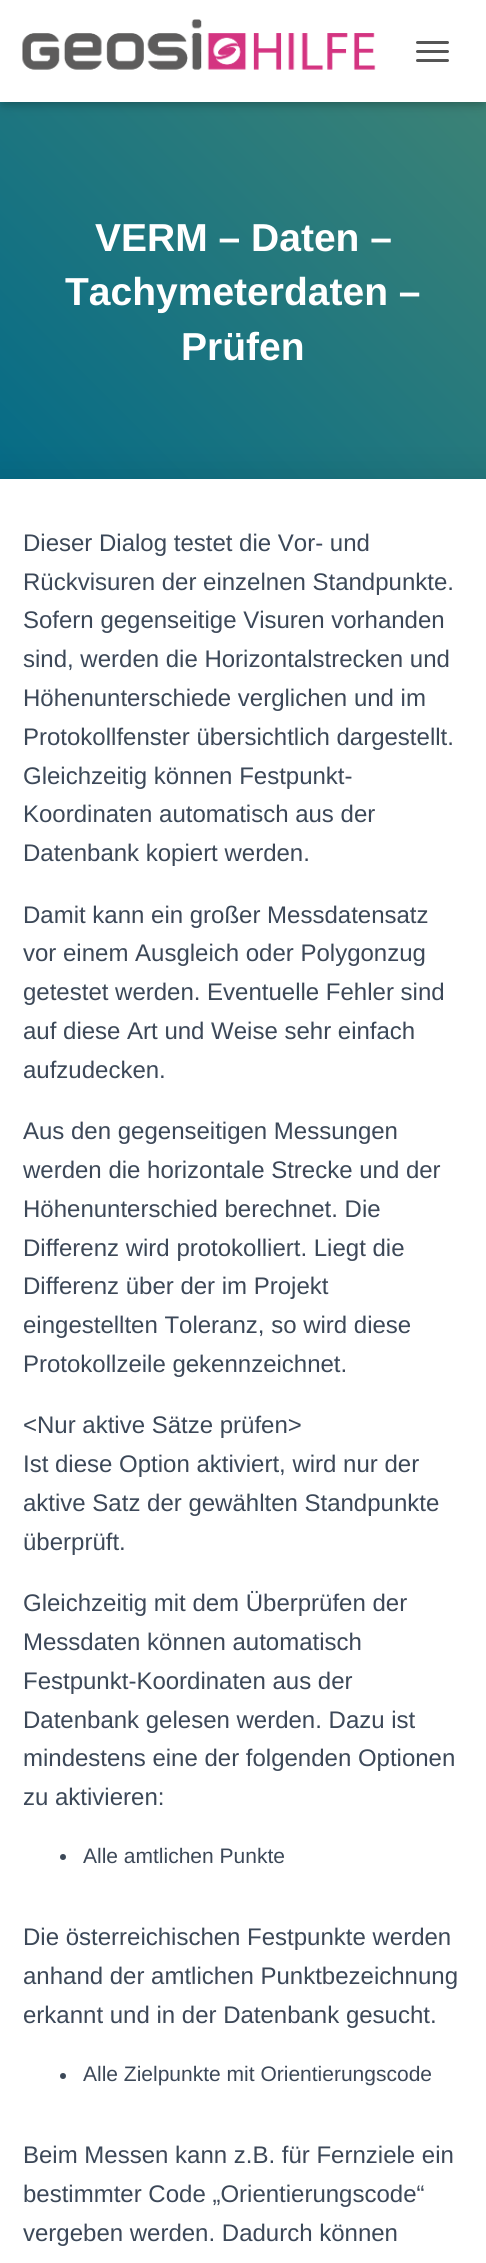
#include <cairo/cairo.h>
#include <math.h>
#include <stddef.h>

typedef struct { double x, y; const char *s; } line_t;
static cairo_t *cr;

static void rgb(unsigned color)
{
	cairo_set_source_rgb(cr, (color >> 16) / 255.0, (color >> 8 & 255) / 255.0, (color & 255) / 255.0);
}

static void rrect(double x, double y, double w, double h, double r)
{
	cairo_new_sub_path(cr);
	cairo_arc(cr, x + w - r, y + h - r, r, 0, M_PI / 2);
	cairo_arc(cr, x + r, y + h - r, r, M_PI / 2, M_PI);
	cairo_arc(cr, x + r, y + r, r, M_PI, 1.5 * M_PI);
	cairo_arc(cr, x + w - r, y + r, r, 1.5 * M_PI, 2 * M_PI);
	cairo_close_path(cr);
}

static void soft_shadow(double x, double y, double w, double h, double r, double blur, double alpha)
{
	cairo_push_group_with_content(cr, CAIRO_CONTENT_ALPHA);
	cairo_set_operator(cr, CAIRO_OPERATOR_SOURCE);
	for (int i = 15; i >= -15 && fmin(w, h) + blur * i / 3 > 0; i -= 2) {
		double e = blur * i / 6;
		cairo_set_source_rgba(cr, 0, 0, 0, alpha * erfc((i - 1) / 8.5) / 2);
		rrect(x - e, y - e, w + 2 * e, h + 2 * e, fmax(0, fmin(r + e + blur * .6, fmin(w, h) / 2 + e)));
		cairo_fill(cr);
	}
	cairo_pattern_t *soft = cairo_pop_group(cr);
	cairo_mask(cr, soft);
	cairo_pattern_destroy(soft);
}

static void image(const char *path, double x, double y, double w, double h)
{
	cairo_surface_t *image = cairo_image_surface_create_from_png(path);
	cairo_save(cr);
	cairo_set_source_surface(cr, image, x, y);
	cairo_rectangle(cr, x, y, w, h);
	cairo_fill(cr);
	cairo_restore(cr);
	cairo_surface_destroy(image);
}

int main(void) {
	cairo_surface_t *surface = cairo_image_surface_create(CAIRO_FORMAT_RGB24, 486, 2263);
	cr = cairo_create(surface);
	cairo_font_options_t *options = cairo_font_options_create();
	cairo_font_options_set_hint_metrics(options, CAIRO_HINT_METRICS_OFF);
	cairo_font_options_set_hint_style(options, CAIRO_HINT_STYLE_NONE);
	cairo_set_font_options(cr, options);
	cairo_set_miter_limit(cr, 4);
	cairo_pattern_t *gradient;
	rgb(0xffffff);
	cairo_paint(cr);
	gradient = cairo_pattern_create_linear(-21, 548, 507, 21);
	cairo_pattern_add_color_stop_rgba(gradient, 0, 0, 0.412, 0.537, 1);
	cairo_pattern_add_color_stop_rgba(gradient, 1, 0.259, 0.522, 0.455, 1);
	cairo_set_source(cr, gradient);
	cairo_pattern_destroy(gradient);
	cairo_rectangle(cr, 0, 102, 486, 377);
	cairo_fill(cr);
	rgb(0x000000);
	soft_shadow(3, 9, 480, 96, 0, 4, 0.1);
	soft_shadow(0, 2, 486, 102, 0, 7.5, 0.12);
	soft_shadow(9, 11, 468, 84, 0, 7.5, 0.42);
	rgb(0xffffff);
	cairo_rectangle(cr, 0, 0, 486, 102);
	cairo_fill(cr);
	image("img/1.png", 22, 19, 354, 51);
	rgb(0x555555);
	rrect(416, 41, 33, 3, 1.5);
	cairo_fill(cr);
	rrect(416, 50, 33, 3, 1.5);
	cairo_fill(cr);
	rrect(416, 59, 33, 3, 1.5);
	cairo_fill(cr);
	rgb(0x000000);
	soft_shadow(-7, 480, 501, 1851, 0, 22.5, 0.12);
	rgb(0xffffff);
	cairo_rectangle(cr, 0, 479, 486, 1784);
	cairo_fill(cr);
	rgb(0x3c4858);
	cairo_arc(cr, 63, 1857, 3, 0, 2 * M_PI);
	cairo_fill(cr);
	cairo_arc(cr, 63, 2076, 3, 0, 2 * M_PI);
	cairo_fill(cr);
	cairo_select_font_face(cr, "Liberation Sans", CAIRO_FONT_SLANT_NORMAL, CAIRO_FONT_WEIGHT_BOLD);
	cairo_set_font_size(cr, 39);
	rgb(0xffffff);
	{
		static const line_t items[] = {
			{95, 251, "VERM – Daten –"},
			{65, 305, "Tachymeterdaten –"},
			{181, 360, "Prüfen"},
		};
		for (size_t i = 0; i < sizeof items / sizeof *items; i++) {
			cairo_move_to(cr, items[i].x, items[i].y);
			cairo_show_text(cr, items[i].s);
		}
	}
	cairo_select_font_face(cr, "Liberation Sans", CAIRO_FONT_SLANT_NORMAL, CAIRO_FONT_WEIGHT_NORMAL);
	cairo_set_font_size(cr, 24);
	rgb(0x3c4858);
	{
		static const line_t items[] = {
			{23, 551, "Dieser Dialog testet die Vor- und"},
			{23, 590, "Rückvisuren der einzelnen Standpunkte."},
			{23, 628, "Sofern gegenseitige Visuren vorhanden"},
			{23, 667, "sind, werden die Horizontalstrecken und"},
			{23, 706, "Höhenunterschiede verglichen und im"},
			{23, 745, "Protokollfenster übersichtlich dargestellt."},
			{23, 784, "Gleichzeitig können Festpunkt-"},
			{23, 822, "Koordinaten automatisch aus der"},
			{23, 861, "Datenbank kopiert werden."},
			{23, 923, "Damit kann ein großer Messdatensatz"},
			{23, 961, "vor einem Ausgleich oder Polygonzug"},
			{23, 1000, "getestet werden. Eventuelle Fehler sind"},
			{23, 1039, "auf diese Art und Weise sehr einfach"},
			{23, 1078, "aufzudecken."},
			{23, 1139, "Aus den gegenseitigen Messungen"},
			{23, 1178, "werden die horizontale Strecke und der"},
			{23, 1217, "Höhenunterschied berechnet. Die"},
			{23, 1256, "Differenz wird protokolliert. Liegt die"},
			{23, 1294, "Differenz über der im Projekt"},
			{23, 1333, "eingestellten Toleranz, so wird diese"},
			{23, 1372, "Protokollzeile gekennzeichnet."},
			{23, 1433, "<Nur aktive Sätze prüfen>"},
			{23, 1472, "Ist diese Option aktiviert, wird nur der"},
			{23, 1511, "aktive Satz der gewählten Standpunkte"},
			{23, 1550, "überprüft."},
			{23, 1611, "Gleichzeitig mit dem Überprüfen der"},
			{23, 1650, "Messdaten können automatisch"},
			{23, 1689, "Festpunkt-Koordinaten aus der"},
			{23, 1728, "Datenbank gelesen werden. Dazu ist"},
			{23, 1766, "mindestens eine der folgenden Optionen"},
			{23, 1805, "zu aktivieren:"},
		};
		for (size_t i = 0; i < sizeof items / sizeof *items; i++) {
			cairo_move_to(cr, items[i].x, items[i].y);
			cairo_show_text(cr, items[i].s);
		}
	}
	cairo_set_font_size(cr, 21);
	cairo_move_to(cr, 83, 1863);
	cairo_show_text(cr, "Alle amtlichen Punkte");
	cairo_set_font_size(cr, 24);
	{
		static const line_t items[] = {
			{23, 1945, "Die österreichischen Festpunkte werden"},
			{23, 1984, "anhand der amtlichen Punktbezeichnung"},
			{23, 2023, "erkannt und in der Datenbank gesucht."},
		};
		for (size_t i = 0; i < sizeof items / sizeof *items; i++) {
			cairo_move_to(cr, items[i].x, items[i].y);
			cairo_show_text(cr, items[i].s);
		}
	}
	cairo_set_font_size(cr, 21);
	cairo_move_to(cr, 83, 2081);
	cairo_show_text(cr, "Alle Zielpunkte mit Orientierungscode");
	cairo_set_font_size(cr, 24);
	{
		static const line_t items[] = {
			{23, 2163, "Beim Messen kann z.B. für Fernziele ein"},
			{23, 2202, "bestimmter Code „Orientierungscode“"},
			{23, 2241, "vergeben werden. Dadurch können"},
		};
		for (size_t i = 0; i < sizeof items / sizeof *items; i++) {
			cairo_move_to(cr, items[i].x, items[i].y);
			cairo_show_text(cr, items[i].s);
		}
	}
	cairo_surface_write_to_png(surface, "page.png");
	cairo_font_options_destroy(options);
	cairo_destroy(cr);
	cairo_surface_destroy(surface);
	return 0;
}
